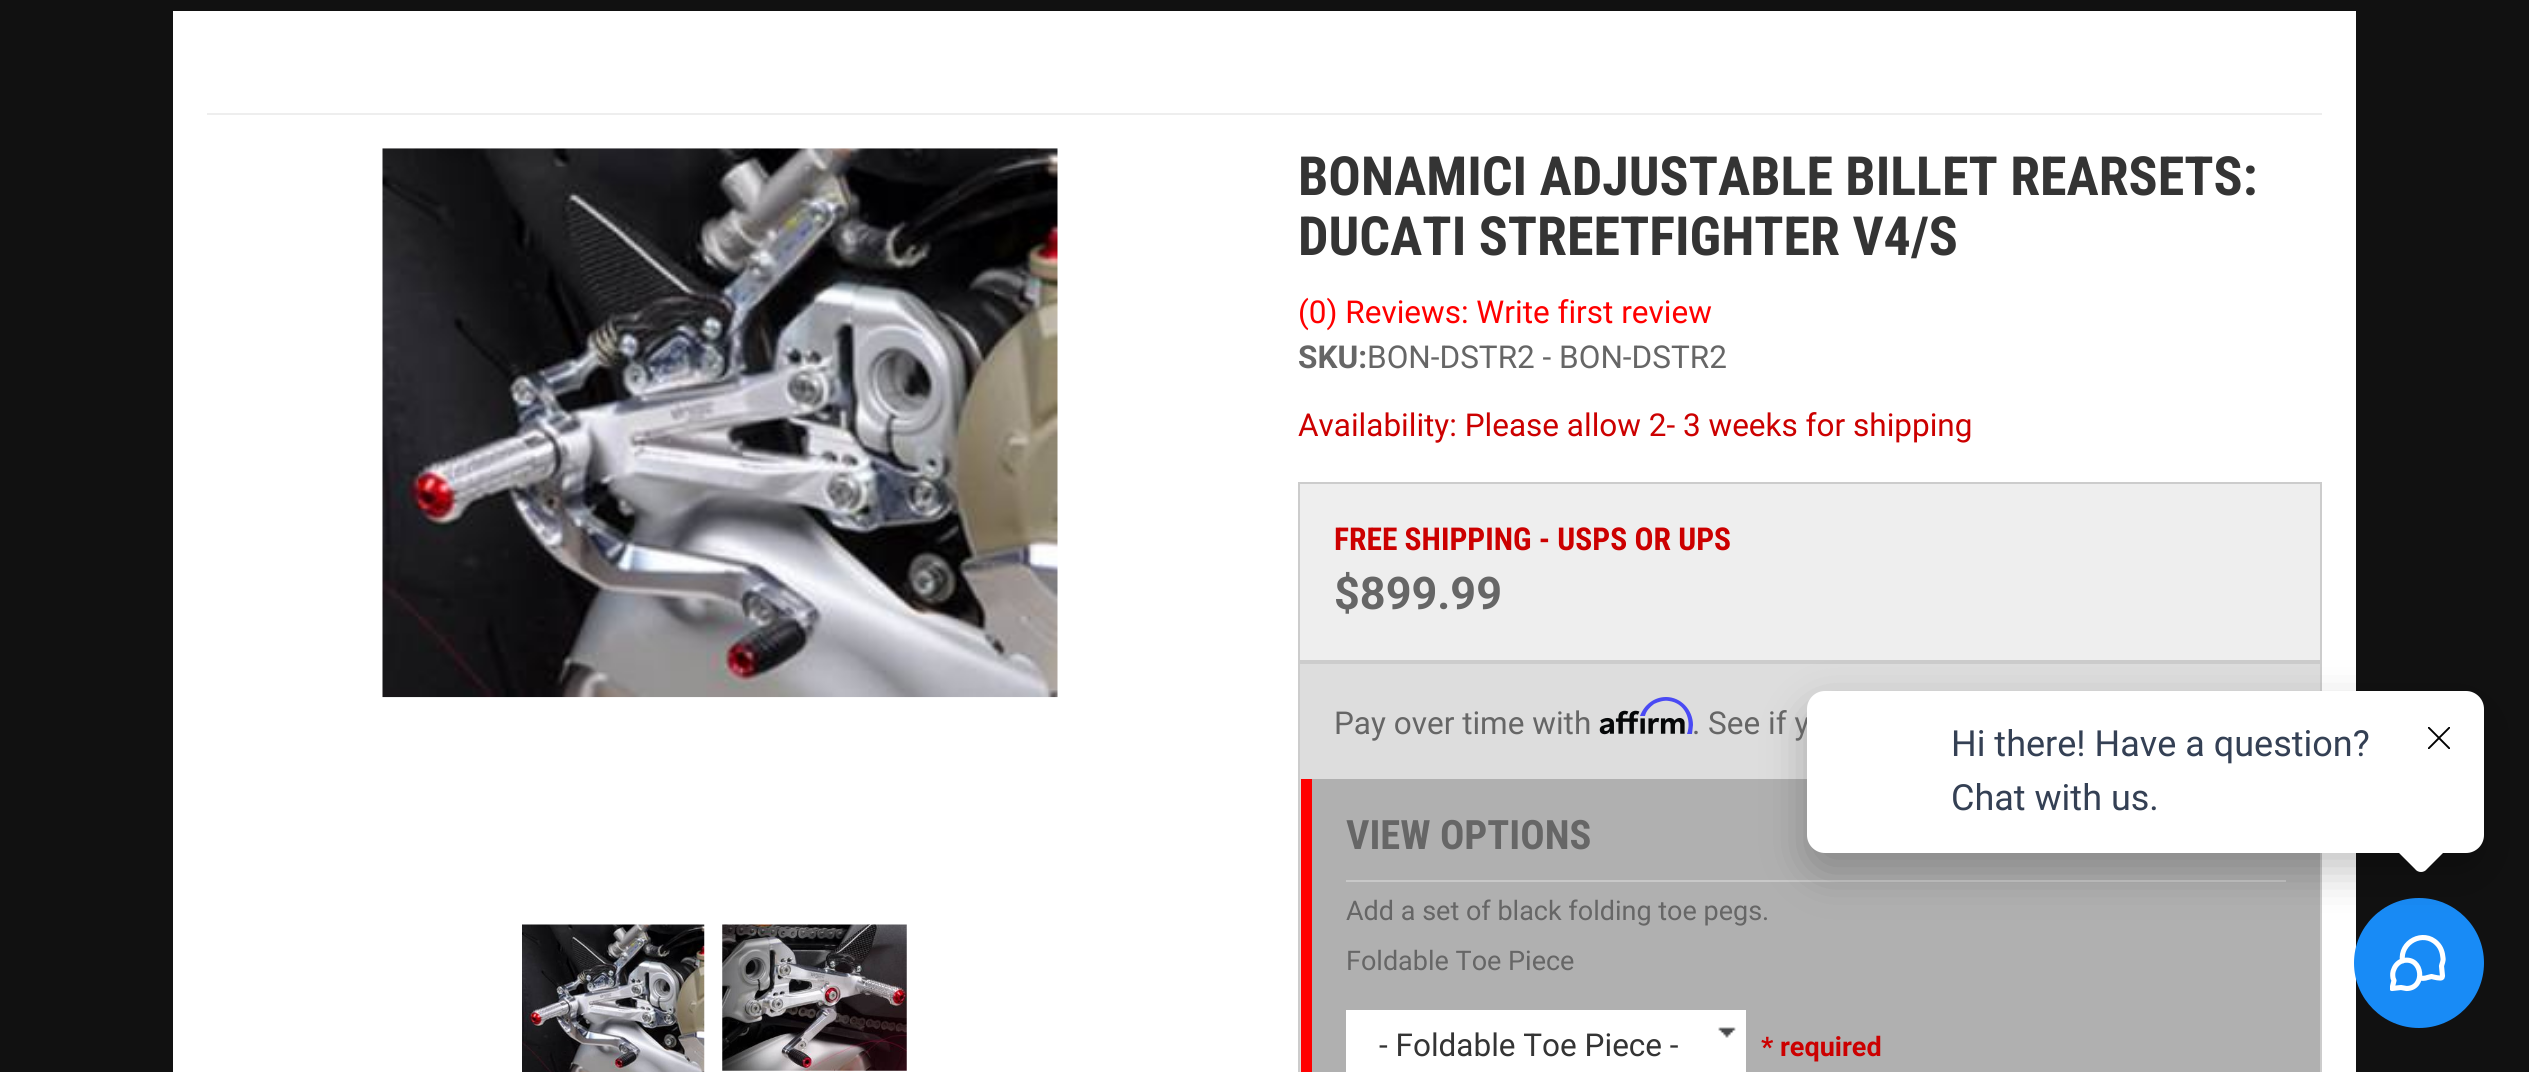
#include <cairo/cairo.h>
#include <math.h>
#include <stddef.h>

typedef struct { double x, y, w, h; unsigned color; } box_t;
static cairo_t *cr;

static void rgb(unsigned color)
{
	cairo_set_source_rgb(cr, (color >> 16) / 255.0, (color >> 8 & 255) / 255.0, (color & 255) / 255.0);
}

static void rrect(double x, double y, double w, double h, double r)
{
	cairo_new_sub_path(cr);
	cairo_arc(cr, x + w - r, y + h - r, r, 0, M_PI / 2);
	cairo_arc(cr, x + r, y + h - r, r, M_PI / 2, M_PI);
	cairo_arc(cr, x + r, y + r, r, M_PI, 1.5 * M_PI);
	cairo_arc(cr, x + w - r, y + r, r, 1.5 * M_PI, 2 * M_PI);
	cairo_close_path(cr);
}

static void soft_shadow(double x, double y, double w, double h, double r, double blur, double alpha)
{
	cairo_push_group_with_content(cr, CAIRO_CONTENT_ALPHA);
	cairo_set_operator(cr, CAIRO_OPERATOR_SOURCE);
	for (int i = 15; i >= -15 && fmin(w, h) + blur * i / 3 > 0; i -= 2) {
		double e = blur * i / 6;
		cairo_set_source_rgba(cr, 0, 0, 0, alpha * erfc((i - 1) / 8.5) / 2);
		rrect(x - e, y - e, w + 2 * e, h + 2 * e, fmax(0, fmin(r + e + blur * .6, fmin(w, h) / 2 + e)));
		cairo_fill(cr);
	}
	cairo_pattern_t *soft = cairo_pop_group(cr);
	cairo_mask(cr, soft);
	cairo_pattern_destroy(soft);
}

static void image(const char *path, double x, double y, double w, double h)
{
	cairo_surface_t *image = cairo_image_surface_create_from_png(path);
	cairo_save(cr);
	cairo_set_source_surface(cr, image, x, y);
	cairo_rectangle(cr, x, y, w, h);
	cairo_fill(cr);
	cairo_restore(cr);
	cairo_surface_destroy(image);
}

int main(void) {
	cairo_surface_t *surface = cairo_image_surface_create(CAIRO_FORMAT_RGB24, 2529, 1072);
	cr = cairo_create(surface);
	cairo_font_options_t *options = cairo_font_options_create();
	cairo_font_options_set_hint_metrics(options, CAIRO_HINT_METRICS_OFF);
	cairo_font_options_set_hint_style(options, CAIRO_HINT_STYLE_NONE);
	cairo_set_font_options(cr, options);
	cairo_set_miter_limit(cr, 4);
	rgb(0x111111);
	cairo_paint(cr);
	rgb(0xffffff);
	cairo_rectangle(cr, 173, 11, 2183, 1061);
	cairo_fill(cr);
	rgb(0xeeeeee);
	cairo_rectangle(cr, 207, 113, 2115, 2);
	cairo_fill(cr);
	image("img/1.png", 382, 148, 676, 550);
	image("img/2.png", 522, 924, 183, 148);
	image("img/3.png", 722, 924, 185, 147);
	cairo_rectangle(cr, 1299, 483, 1022, 178);
	cairo_fill_preserve(cr);
	rgb(0xcccccc);
	cairo_stroke(cr);
	rgb(0xdddddd);
	cairo_rectangle(cr, 1299, 663, 1022, 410);
	cairo_fill_preserve(cr);
	rgb(0xcccccc);
	cairo_stroke(cr);
	image("img/4.png", 1599, 710, 86, 25);
	rgb(0x4a4af4);
	cairo_new_path(cr);
	cairo_move_to(cr, 1666, 697);
	cairo_curve_to(cr, 1654, 697, 1644, 705, 1640, 716);
	cairo_line_to(cr, 1645, 716);
	cairo_curve_to(cr, 1646, 711, 1650, 707, 1654, 704);
	cairo_curve_to(cr, 1658, 702, 1664, 700, 1669, 701);
	cairo_curve_to(cr, 1685, 703, 1692, 720, 1687, 734);
	cairo_line_to(cr, 1692, 734);
	cairo_line_to(cr, 1693, 725);
	cairo_curve_to(cr, 1693, 710, 1681, 697, 1666, 697);
	cairo_close_path(cr);
	cairo_fill(cr);
	{
		static const box_t items[] = {
			{1312, 779, 1008, 293, 0xb0b0b0},
			{1301, 779, 11, 293, 0xff0000},
			{1346, 880, 940, 2, 0xc8c8c8},
			{1346, 1010, 400, 62, 0xffffff},
		};
		for (size_t i = 0; i < sizeof items / sizeof *items; i++) {
			rgb(items[i].color);
			cairo_rectangle(cr, items[i].x, items[i].y, items[i].w, items[i].h);
			cairo_fill(cr);
		}
	}
	image("img/5.png", 1718, 1027, 18, 11);
	rgb(0x188bf6);
	cairo_arc(cr, 2419, 963, 65, 0, 2 * M_PI);
	cairo_fill(cr);
	cairo_save(cr);
	cairo_rectangle(cr, 2390, 934, 58, 58);
	cairo_clip(cr);
	cairo_new_path(cr);
	cairo_move_to(cr, 2402.5, 961);
	cairo_curve_to(cr, 2399.5, 942, 2423.5, 929.5, 2437, 943.5);
	cairo_curve_to(cr, 2441, 947.5, 2442.5, 952.5, 2443, 958);
	cairo_curve_to(cr, 2443.5, 961, 2442, 963.5, 2441.5, 966);
	cairo_line_to(cr, 2442.5, 976);
	cairo_line_to(cr, 2442, 977.5);
	cairo_curve_to(cr, 2441, 979, 2433.5, 977, 2431.5, 976.5);
	cairo_line_to(cr, 2427.5, 977.5);
	cairo_curve_to(cr, 2425, 978.5, 2422, 978.5, 2419.5, 978);
	cairo_move_to(cr, 2406.5, 988.5);
	cairo_curve_to(cr, 2426, 988.5, 2423, 956.5, 2403.5, 960.5);
	cairo_curve_to(cr, 2399, 961.5, 2395.5, 965, 2394, 969);
	cairo_curve_to(cr, 2392.5, 972, 2392.5, 975, 2393, 978);
	cairo_line_to(cr, 2394, 980.5);
	cairo_line_to(cr, 2392, 988.5);
	cairo_line_to(cr, 2401, 987.5);
	cairo_close_path(cr);
	rgb(0xffffff);
	cairo_set_line_width(cr, 5.1);
	cairo_set_line_cap(cr, CAIRO_LINE_CAP_ROUND);
	cairo_set_line_join(cr, CAIRO_LINE_JOIN_ROUND);
	cairo_stroke(cr);
	cairo_restore(cr);
	rgb(0x000000);
	soft_shadow(1807, 709, 677, 162, 18, 22.5, 0.24);
	cairo_select_font_face(cr, "Roboto Condensed", CAIRO_FONT_SLANT_NORMAL, CAIRO_FONT_WEIGHT_BOLD);
	cairo_set_font_size(cr, 54);
	rgb(0x343434);
	cairo_move_to(cr, 1298, 195);
	cairo_show_text(cr, "BONAMICI ADJUSTABLE BILLET REARSETS:");
	cairo_move_to(cr, 1298, 255);
	cairo_show_text(cr, "DUCATI STREETFIGHTER V4/S");
	cairo_select_font_face(cr, "Roboto", CAIRO_FONT_SLANT_NORMAL, CAIRO_FONT_WEIGHT_NORMAL);
	cairo_set_font_size(cr, 31.5);
	rgb(0xff0000);
	cairo_move_to(cr, 1298, 323);
	cairo_show_text(cr, "(0) Reviews: Write first review");
	cairo_select_font_face(cr, "Roboto", CAIRO_FONT_SLANT_NORMAL, CAIRO_FONT_WEIGHT_BOLD);
	rgb(0x666666);
	cairo_move_to(cr, 1298, 368);
	cairo_show_text(cr, "SKU:");
	cairo_select_font_face(cr, "Roboto", CAIRO_FONT_SLANT_NORMAL, CAIRO_FONT_WEIGHT_NORMAL);
	cairo_move_to(cr, 1367, 368);
	cairo_show_text(cr, "BON-DSTR2 - BON-DSTR2");
	rgb(0xcc0000);
	cairo_move_to(cr, 1298, 436);
	cairo_show_text(cr, "Availability: Please allow 2- 3 weeks for shipping");
	cairo_select_font_face(cr, "Roboto Condensed", CAIRO_FONT_SLANT_NORMAL, CAIRO_FONT_WEIGHT_BOLD);
	cairo_move_to(cr, 1334, 550);
	cairo_show_text(cr, "FREE SHIPPING - USPS OR UPS");
	cairo_select_font_face(cr, "Roboto", CAIRO_FONT_SLANT_NORMAL, CAIRO_FONT_WEIGHT_BOLD);
	cairo_set_font_size(cr, 45);
	rgb(0x666666);
	cairo_move_to(cr, 1334, 609);
	cairo_show_text(cr, "$899.99");
	cairo_select_font_face(cr, "Roboto", CAIRO_FONT_SLANT_NORMAL, CAIRO_FONT_WEIGHT_NORMAL);
	cairo_set_font_size(cr, 31.5);
	cairo_move_to(cr, 1334, 734);
	cairo_show_text(cr, "Pay over time with");
	cairo_move_to(cr, 1692, 734);
	cairo_show_text(cr, ". See if y");
	cairo_select_font_face(cr, "Roboto Condensed", CAIRO_FONT_SLANT_NORMAL, CAIRO_FONT_WEIGHT_BOLD);
	cairo_set_font_size(cr, 40.5);
	cairo_move_to(cr, 1346, 849);
	cairo_show_text(cr, "VIEW OPTIONS");
	cairo_select_font_face(cr, "Roboto", CAIRO_FONT_SLANT_NORMAL, CAIRO_FONT_WEIGHT_NORMAL);
	cairo_set_font_size(cr, 27);
	cairo_move_to(cr, 1346, 920);
	cairo_show_text(cr, "Add a set of black folding toe pegs.");
	cairo_move_to(cr, 1346, 970);
	cairo_show_text(cr, "Foldable Toe Piece");
	cairo_set_font_size(cr, 31.5);
	rgb(0x343434);
	cairo_move_to(cr, 1379, 1056);
	cairo_show_text(cr, "- Foldable Toe Piece -");
	cairo_select_font_face(cr, "Roboto", CAIRO_FONT_SLANT_NORMAL, CAIRO_FONT_WEIGHT_BOLD);
	cairo_set_font_size(cr, 27);
	rgb(0xcc0000);
	cairo_move_to(cr, 1761, 1056);
	cairo_show_text(cr, "* required");
	rgb(0xffffff);
	rrect(1807, 691, 677, 162, 18);
	cairo_fill(cr);
	cairo_select_font_face(cr, "Roboto", CAIRO_FONT_SLANT_NORMAL, CAIRO_FONT_WEIGHT_NORMAL);
	cairo_set_font_size(cr, 36);
	rgb(0x344054);
	cairo_move_to(cr, 1951, 756);
	cairo_show_text(cr, "Hi there! Have a question?");
	cairo_move_to(cr, 1951, 810);
	cairo_show_text(cr, "Chat with us.");
	rgb(0xffffff);
	cairo_new_path(cr);
	cairo_move_to(cr, 2427, 818);
	cairo_line_to(cr, 2446, 837);
	cairo_curve_to(cr, 2450, 841, 2450, 847, 2446, 850);
	cairo_line_to(cr, 2427, 869);
	cairo_curve_to(cr, 2424, 873, 2418, 873, 2415, 869);
	cairo_line_to(cr, 2396, 850);
	cairo_curve_to(cr, 2392, 847, 2392, 841, 2396, 837);
	cairo_line_to(cr, 2415, 818);
	cairo_curve_to(cr, 2418, 815, 2424, 815, 2427, 818);
	cairo_close_path(cr);
	cairo_fill(cr);
	image("img/6.png", 2428, 727, 22, 22);
	cairo_surface_write_to_png(surface, "page.png");
	cairo_font_options_destroy(options);
	cairo_destroy(cr);
	cairo_surface_destroy(surface);
	return 0;
}
